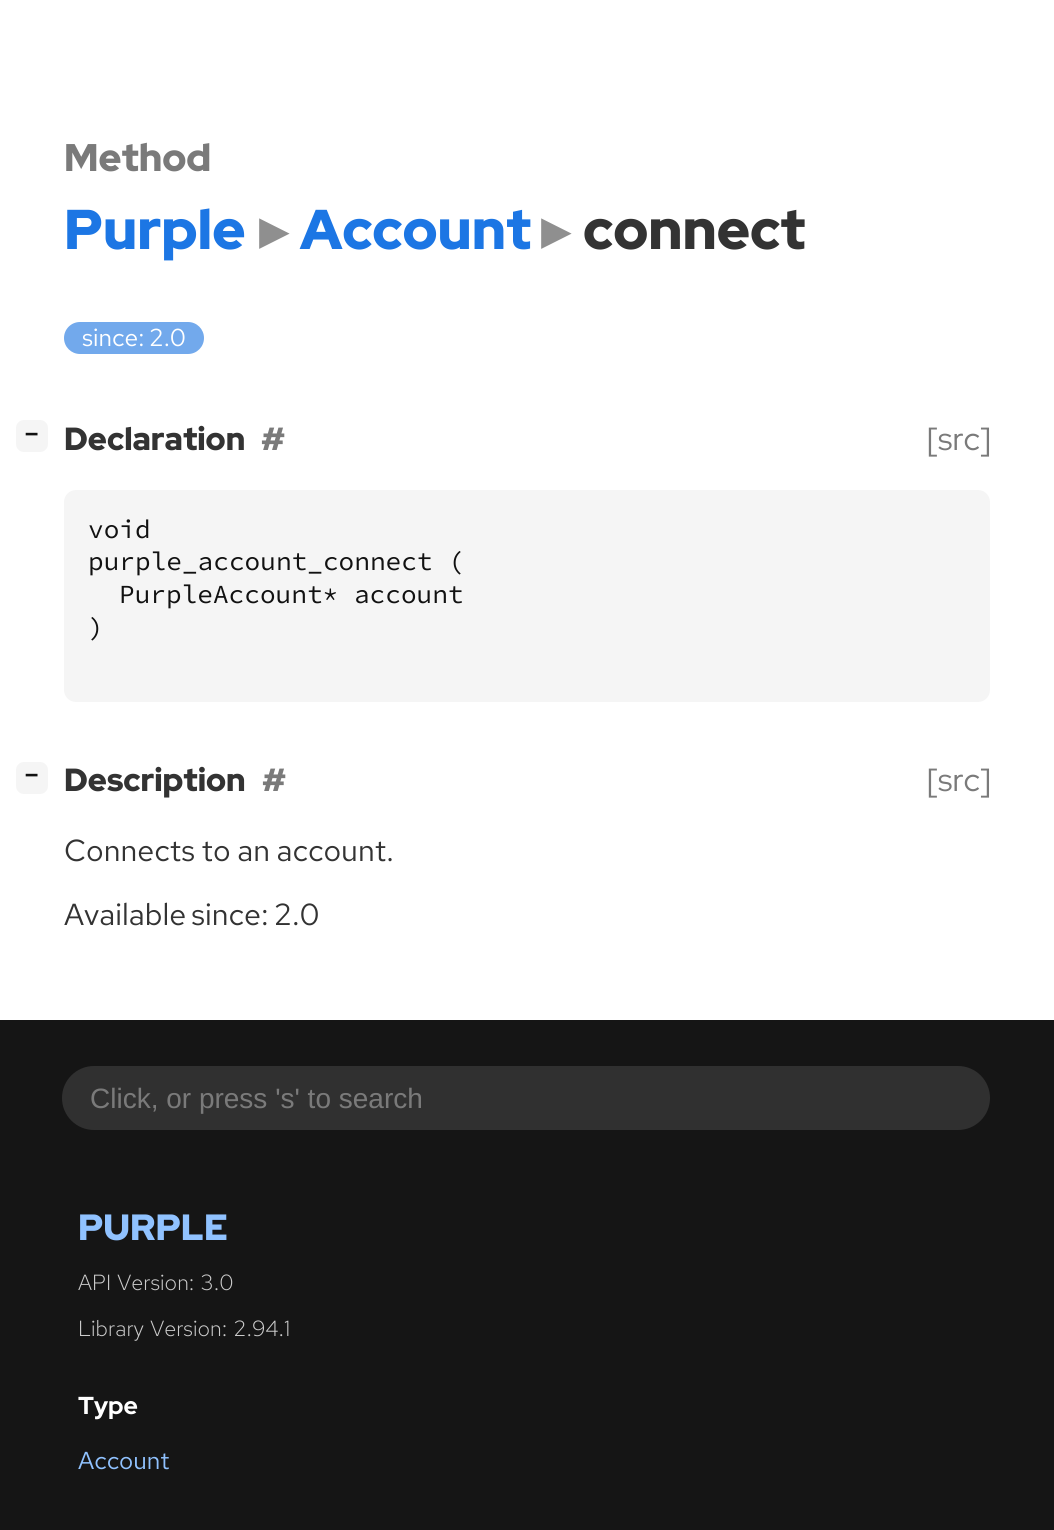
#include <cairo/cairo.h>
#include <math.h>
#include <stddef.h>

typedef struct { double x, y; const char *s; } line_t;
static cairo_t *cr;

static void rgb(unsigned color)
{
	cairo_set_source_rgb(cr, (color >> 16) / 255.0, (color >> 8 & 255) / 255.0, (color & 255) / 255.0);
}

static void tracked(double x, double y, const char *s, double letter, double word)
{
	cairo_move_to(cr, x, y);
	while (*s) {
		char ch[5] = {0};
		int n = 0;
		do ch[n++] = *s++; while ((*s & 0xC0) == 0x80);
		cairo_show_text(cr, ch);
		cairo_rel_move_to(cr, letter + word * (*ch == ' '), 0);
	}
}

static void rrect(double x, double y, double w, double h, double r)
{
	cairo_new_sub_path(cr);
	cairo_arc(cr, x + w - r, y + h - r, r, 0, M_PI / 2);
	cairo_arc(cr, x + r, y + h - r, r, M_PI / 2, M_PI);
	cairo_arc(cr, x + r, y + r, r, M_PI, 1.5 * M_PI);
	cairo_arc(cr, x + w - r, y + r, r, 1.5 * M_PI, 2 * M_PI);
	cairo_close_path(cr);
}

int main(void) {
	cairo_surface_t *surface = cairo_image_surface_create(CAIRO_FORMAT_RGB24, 1054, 1530);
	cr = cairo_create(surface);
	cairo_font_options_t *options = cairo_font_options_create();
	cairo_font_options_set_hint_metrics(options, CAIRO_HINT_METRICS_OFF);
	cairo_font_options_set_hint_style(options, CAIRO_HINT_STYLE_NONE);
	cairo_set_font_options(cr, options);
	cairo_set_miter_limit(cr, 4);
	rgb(0xffffff);
	cairo_paint(cr);
	rgb(0x72a9ec);
	rrect(64, 322, 140, 32, 16);
	cairo_fill(cr);
	rgb(0xf5f5f5);
	rrect(16, 420, 32, 32, 8);
	cairo_fill(cr);
	rrect(64, 490, 926, 212, 12);
	cairo_fill(cr);
	rrect(16, 762, 32, 32, 8);
	cairo_fill(cr);
	rgb(0x151515);
	cairo_rectangle(cr, 0, 1020, 1054, 510);
	cairo_fill(cr);
	rgb(0x303030);
	rrect(62, 1066, 928, 64, 32);
	cairo_fill(cr);
	cairo_select_font_face(cr, "Red Hat Display Black", CAIRO_FONT_SLANT_NORMAL, CAIRO_FONT_WEIGHT_NORMAL);
	cairo_set_font_size(cr, 38.5);
	rgb(0x7a7a7a);
	cairo_move_to(cr, 64, 171);
	cairo_show_text(cr, "Method");
	cairo_set_font_size(cr, 56);
	rgb(0x1c76e4);
	cairo_move_to(cr, 64, 249);
	cairo_show_text(cr, "Purple");
	cairo_select_font_face(cr, "DejaVu Sans", CAIRO_FONT_SLANT_NORMAL, CAIRO_FONT_WEIGHT_BOLD);
	rgb(0x8f8f8f);
	cairo_move_to(cr, 259, 249);
	cairo_show_text(cr, "▸");
	cairo_select_font_face(cr, "Red Hat Display Black", CAIRO_FONT_SLANT_NORMAL, CAIRO_FONT_WEIGHT_NORMAL);
	rgb(0x1c76e4);
	cairo_move_to(cr, 300, 249);
	cairo_show_text(cr, "Account");
	cairo_select_font_face(cr, "DejaVu Sans", CAIRO_FONT_SLANT_NORMAL, CAIRO_FONT_WEIGHT_BOLD);
	rgb(0x8f8f8f);
	cairo_move_to(cr, 541, 249);
	cairo_show_text(cr, "▸");
	cairo_select_font_face(cr, "Red Hat Display Black", CAIRO_FONT_SLANT_NORMAL, CAIRO_FONT_WEIGHT_NORMAL);
	rgb(0x333333);
	cairo_move_to(cr, 583, 249);
	cairo_show_text(cr, "connect");
	cairo_select_font_face(cr, "Red Hat Text", CAIRO_FONT_SLANT_NORMAL, CAIRO_FONT_WEIGHT_NORMAL);
	cairo_set_font_size(cr, 24.5);
	rgb(0xffffff);
	tracked(82, 346, "since: 2.0", 0, -1);
	cairo_select_font_face(cr, "DejaVu Sans Mono", CAIRO_FONT_SLANT_NORMAL, CAIRO_FONT_WEIGHT_BOLD);
	cairo_set_font_size(cr, 22);
	rgb(0x111111);
	cairo_move_to(cr, 25, 441);
	cairo_show_text(cr, "−");
	cairo_select_font_face(cr, "Red Hat Display Black", CAIRO_FONT_SLANT_NORMAL, CAIRO_FONT_WEIGHT_NORMAL);
	cairo_set_font_size(cr, 32);
	rgb(0x333333);
	cairo_move_to(cr, 64, 450);
	cairo_show_text(cr, "Declaration");
	rgb(0x7a7a7a);
	cairo_move_to(cr, 261, 450);
	cairo_show_text(cr, "#");
	cairo_select_font_face(cr, "Red Hat Display", CAIRO_FONT_SLANT_NORMAL, CAIRO_FONT_WEIGHT_NORMAL);
	cairo_move_to(cr, 927, 450);
	cairo_show_text(cr, "[src]");
	cairo_select_font_face(cr, "Source Code Pro", CAIRO_FONT_SLANT_NORMAL, CAIRO_FONT_WEIGHT_NORMAL);
	cairo_set_font_size(cr, 26.1);
	rgb(0x111111);
	{
		static const line_t items[] = {
			{88, 538, "void"},
			{88, 570, "purple_account_connect ("},
			{119, 603, "PurpleAccount* account"},
			{88, 636, ")"},
		};
		for (size_t i = 0; i < sizeof items / sizeof *items; i++) {
			cairo_move_to(cr, items[i].x, items[i].y);
			cairo_show_text(cr, items[i].s);
		}
	}
	cairo_select_font_face(cr, "DejaVu Sans Mono", CAIRO_FONT_SLANT_NORMAL, CAIRO_FONT_WEIGHT_BOLD);
	cairo_set_font_size(cr, 22);
	cairo_move_to(cr, 25, 782);
	cairo_show_text(cr, "−");
	cairo_select_font_face(cr, "Red Hat Display Black", CAIRO_FONT_SLANT_NORMAL, CAIRO_FONT_WEIGHT_NORMAL);
	cairo_set_font_size(cr, 32);
	rgb(0x333333);
	cairo_move_to(cr, 64, 791);
	cairo_show_text(cr, "Description");
	rgb(0x7a7a7a);
	cairo_move_to(cr, 262, 791);
	cairo_show_text(cr, "#");
	cairo_select_font_face(cr, "Red Hat Display", CAIRO_FONT_SLANT_NORMAL, CAIRO_FONT_WEIGHT_NORMAL);
	cairo_move_to(cr, 927, 791);
	cairo_show_text(cr, "[src]");
	cairo_select_font_face(cr, "Red Hat Text", CAIRO_FONT_SLANT_NORMAL, CAIRO_FONT_WEIGHT_NORMAL);
	cairo_set_font_size(cr, 30.4);
	rgb(0x333333);
	tracked(64, 861, "Connects to an account.", 0, -0.5);
	tracked(64, 925, "Available since: 2.0", 0, -2);
	cairo_select_font_face(cr, "Liberation Sans", CAIRO_FONT_SLANT_NORMAL, CAIRO_FONT_WEIGHT_NORMAL);
	cairo_set_font_size(cr, 28);
	rgb(0x7a7a7a);
	cairo_move_to(cr, 90, 1108);
	cairo_show_text(cr, "Click, or press 's' to search");
	cairo_select_font_face(cr, "Red Hat Display Black", CAIRO_FONT_SLANT_NORMAL, CAIRO_FONT_WEIGHT_NORMAL);
	cairo_set_font_size(cr, 36.5);
	rgb(0x90c2ff);
	cairo_move_to(cr, 78, 1240);
	cairo_show_text(cr, "PURPLE");
	cairo_select_font_face(cr, "Red Hat Text Light", CAIRO_FONT_SLANT_NORMAL, CAIRO_FONT_WEIGHT_NORMAL);
	cairo_set_font_size(cr, 21.9);
	rgb(0xcccccc);
	tracked(78, 1290, "API Version: 3.0", 0, 1);
	tracked(78, 1336, "Library Version: 2.94.1", 0, 1);
	cairo_select_font_face(cr, "Red Hat Display ExtraBold", CAIRO_FONT_SLANT_NORMAL, CAIRO_FONT_WEIGHT_NORMAL);
	cairo_set_font_size(cr, 24.5);
	rgb(0xffffff);
	cairo_move_to(cr, 78, 1414);
	cairo_show_text(cr, "Type");
	cairo_select_font_face(cr, "Red Hat Text", CAIRO_FONT_SLANT_NORMAL, CAIRO_FONT_WEIGHT_NORMAL);
	rgb(0x90c2ff);
	cairo_move_to(cr, 78, 1469);
	cairo_show_text(cr, "Account");
	cairo_surface_write_to_png(surface, "page.png");
	cairo_font_options_destroy(options);
	cairo_destroy(cr);
	cairo_surface_destroy(surface);
	return 0;
}
